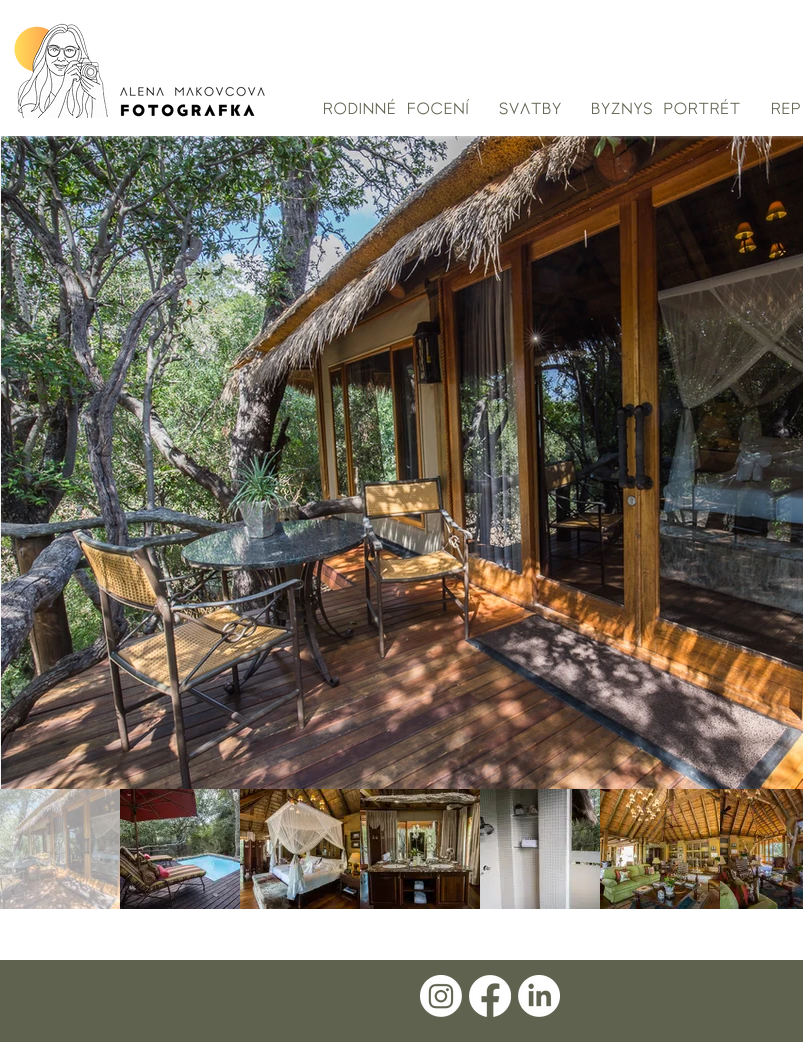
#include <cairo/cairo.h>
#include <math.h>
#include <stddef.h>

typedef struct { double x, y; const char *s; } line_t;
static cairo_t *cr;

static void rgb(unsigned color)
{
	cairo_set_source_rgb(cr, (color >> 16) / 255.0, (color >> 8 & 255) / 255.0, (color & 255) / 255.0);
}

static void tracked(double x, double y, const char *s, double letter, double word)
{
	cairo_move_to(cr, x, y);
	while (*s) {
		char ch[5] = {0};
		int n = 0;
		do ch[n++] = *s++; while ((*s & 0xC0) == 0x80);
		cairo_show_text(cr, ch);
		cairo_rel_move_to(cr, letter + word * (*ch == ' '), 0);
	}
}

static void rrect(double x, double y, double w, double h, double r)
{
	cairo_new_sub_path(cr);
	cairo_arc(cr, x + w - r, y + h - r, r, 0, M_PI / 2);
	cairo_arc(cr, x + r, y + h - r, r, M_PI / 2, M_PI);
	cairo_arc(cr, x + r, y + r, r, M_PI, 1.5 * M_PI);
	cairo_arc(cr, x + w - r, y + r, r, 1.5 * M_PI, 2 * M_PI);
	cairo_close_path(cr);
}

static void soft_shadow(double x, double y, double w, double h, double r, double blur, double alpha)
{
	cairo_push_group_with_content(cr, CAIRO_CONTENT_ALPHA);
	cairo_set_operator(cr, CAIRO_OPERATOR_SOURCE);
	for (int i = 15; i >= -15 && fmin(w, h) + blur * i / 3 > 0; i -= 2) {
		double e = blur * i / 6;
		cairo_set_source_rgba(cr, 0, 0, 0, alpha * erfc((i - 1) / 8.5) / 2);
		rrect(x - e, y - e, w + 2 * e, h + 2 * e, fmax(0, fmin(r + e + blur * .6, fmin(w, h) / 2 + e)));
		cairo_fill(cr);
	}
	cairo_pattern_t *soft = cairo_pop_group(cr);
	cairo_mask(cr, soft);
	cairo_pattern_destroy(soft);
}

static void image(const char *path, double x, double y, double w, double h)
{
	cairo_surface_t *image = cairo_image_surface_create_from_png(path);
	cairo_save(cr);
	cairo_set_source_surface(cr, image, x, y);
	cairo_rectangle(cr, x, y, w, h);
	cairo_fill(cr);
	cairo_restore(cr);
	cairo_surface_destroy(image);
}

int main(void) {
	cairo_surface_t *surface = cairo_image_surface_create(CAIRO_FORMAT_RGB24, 803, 1042);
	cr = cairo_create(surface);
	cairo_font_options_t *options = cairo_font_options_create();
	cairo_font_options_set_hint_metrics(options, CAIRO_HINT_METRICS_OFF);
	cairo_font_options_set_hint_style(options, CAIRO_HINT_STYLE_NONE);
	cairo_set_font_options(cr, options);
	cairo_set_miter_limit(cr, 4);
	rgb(0xffffff);
	cairo_paint(cr);
	rgb(0xf5f5f5);
	cairo_rectangle(cr, 0, 136, 1, 653);
	cairo_fill(cr);
	image("img/2.png", 1, 136, 802, 653);
	cairo_save(cr);
	cairo_rectangle(cr, 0, 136, 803, 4);
	cairo_clip(cr);
	rgb(0xffffff);
	soft_shadow(0, 0, 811, 136, 0, 2.5, 0.5);
	cairo_restore(cr);
	image("img/1.png", 14, 23, 251, 95);
	image("img/3.png", 0, 789, 120, 120);
	image("img/4.png", 120, 789, 120, 120);
	image("img/5.png", 240, 789, 120, 120);
	image("img/6.png", 360, 789, 120, 120);
	image("img/7.png", 480, 789, 120, 120);
	image("img/8.png", 600, 789, 120, 120);
	image("img/9.png", 720, 789, 83, 120);
	rgb(0x606250);
	cairo_rectangle(cr, 0, 960, 803, 82);
	cairo_fill(cr);
	image("img/10.png", 420, 975, 42, 42);
	image("img/11.png", 469, 975, 42, 42);
	image("img/12.png", 518, 975, 42, 42);
	cairo_select_font_face(cr, "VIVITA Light", CAIRO_FONT_SLANT_NORMAL, CAIRO_FONT_WEIGHT_NORMAL);
	cairo_set_font_size(cr, 16);
	{
		static const line_t items[] = {
			{323, 114, "RODINNÉ FOCENÍ"},
			{499, 114, "SVATBY"},
			{591, 114, "BYZNYS PORTRÉT"},
			{771, 114, "REP"},
		};
		for (size_t i = 0; i < sizeof items / sizeof *items; i++) {
			tracked(items[i].x, items[i].y, items[i].s, 0.75, 0);
		}
	}
	cairo_surface_write_to_png(surface, "page.png");
	cairo_font_options_destroy(options);
	cairo_destroy(cr);
	cairo_surface_destroy(surface);
	return 0;
}
